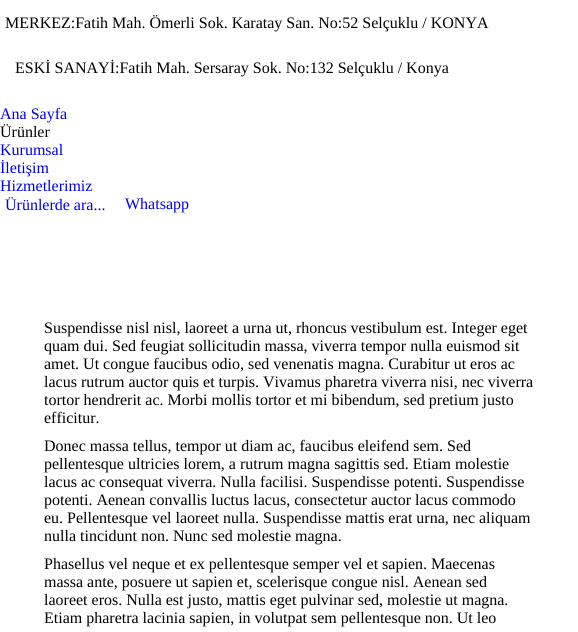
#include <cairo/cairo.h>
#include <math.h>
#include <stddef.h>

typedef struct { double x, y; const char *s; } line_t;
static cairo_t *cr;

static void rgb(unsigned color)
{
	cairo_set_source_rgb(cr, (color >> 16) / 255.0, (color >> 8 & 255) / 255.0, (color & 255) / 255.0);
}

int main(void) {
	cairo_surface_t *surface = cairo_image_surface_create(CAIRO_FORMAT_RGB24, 578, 632);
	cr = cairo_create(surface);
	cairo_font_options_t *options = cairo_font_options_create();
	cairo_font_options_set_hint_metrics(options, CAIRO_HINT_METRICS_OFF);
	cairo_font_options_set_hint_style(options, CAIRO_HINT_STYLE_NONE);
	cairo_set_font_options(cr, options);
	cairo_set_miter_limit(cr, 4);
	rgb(0xffffff);
	cairo_paint(cr);
	cairo_select_font_face(cr, "Liberation Serif", CAIRO_FONT_SLANT_NORMAL, CAIRO_FONT_WEIGHT_NORMAL);
	cairo_set_font_size(cr, 16);
	rgb(0x000000);
	cairo_move_to(cr, 5, 28);
	cairo_show_text(cr, "MERKEZ:Fatih Mah. Ömerli Sok. Karatay San. No:52 Selçuklu / KONYA");
	cairo_move_to(cr, 15, 73);
	cairo_show_text(cr, "ESKİ SANAYİ:Fatih Mah. Sersaray Sok. No:132 Selçuklu / Konya");
	rgb(0x0000ee);
	cairo_move_to(cr, 0, 119);
	cairo_show_text(cr, "Ana Sayfa");
	rgb(0x000000);
	cairo_move_to(cr, 0, 137);
	cairo_show_text(cr, "Ürünler");
	rgb(0x0000ee);
	{
		static const line_t items[] = {
			{0, 155, "Kurumsal"},
			{0, 173, "İletişim"},
			{0, 191, "Hizmetlerimiz"},
			{5, 210, "Ürünlerde ara..."},
			{125, 209, "Whatsapp"},
		};
		for (size_t i = 0; i < sizeof items / sizeof *items; i++) {
			cairo_move_to(cr, items[i].x, items[i].y);
			cairo_show_text(cr, items[i].s);
		}
	}
	rgb(0x000000);
	{
		static const line_t items[] = {
			{44, 333, "Suspendisse nisl nisl, laoreet a urna ut, rhoncus vestibulum est. Integer eget"},
			{44, 351, "quam dui. Sed feugiat sollicitudin massa, viverra tempor nulla euismod sit"},
			{44, 369, "amet. Ut congue faucibus odio, sed venenatis magna. Curabitur ut eros ac"},
			{44, 387, "lacus rutrum auctor quis et turpis. Vivamus pharetra viverra nisi, nec viverra"},
			{44, 405, "tortor hendrerit ac. Morbi mollis tortor et mi bibendum, sed pretium justo"},
			{44, 423, "efficitur."},
			{44, 451, "Donec massa tellus, tempor ut diam ac, faucibus eleifend sem. Sed"},
			{44, 469, "pellentesque ultricies lorem, a rutrum magna sagittis sed. Etiam molestie"},
			{44, 487, "lacus ac consequat viverra. Nulla facilisi. Suspendisse potenti. Suspendisse"},
			{44, 505, "potenti. Aenean convallis luctus lacus, consectetur auctor lacus commodo"},
			{44, 523, "eu. Pellentesque vel laoreet nulla. Suspendisse mattis erat urna, nec aliquam"},
			{44, 541, "nulla tincidunt non. Nunc sed molestie magna."},
			{44, 569, "Phasellus vel neque et ex pellentesque semper vel et sapien. Maecenas"},
			{44, 587, "massa ante, posuere ut sapien et, scelerisque congue nisl. Aenean sed"},
			{44, 605, "laoreet eros. Nulla est justo, mattis eget pulvinar sed, molestie ut magna."},
			{44, 623, "Etiam pharetra lacinia sapien, in volutpat sem pellentesque non. Ut leo"},
		};
		for (size_t i = 0; i < sizeof items / sizeof *items; i++) {
			cairo_move_to(cr, items[i].x, items[i].y);
			cairo_show_text(cr, items[i].s);
		}
	}
	cairo_surface_write_to_png(surface, "page.png");
	cairo_font_options_destroy(options);
	cairo_destroy(cr);
	cairo_surface_destroy(surface);
	return 0;
}
